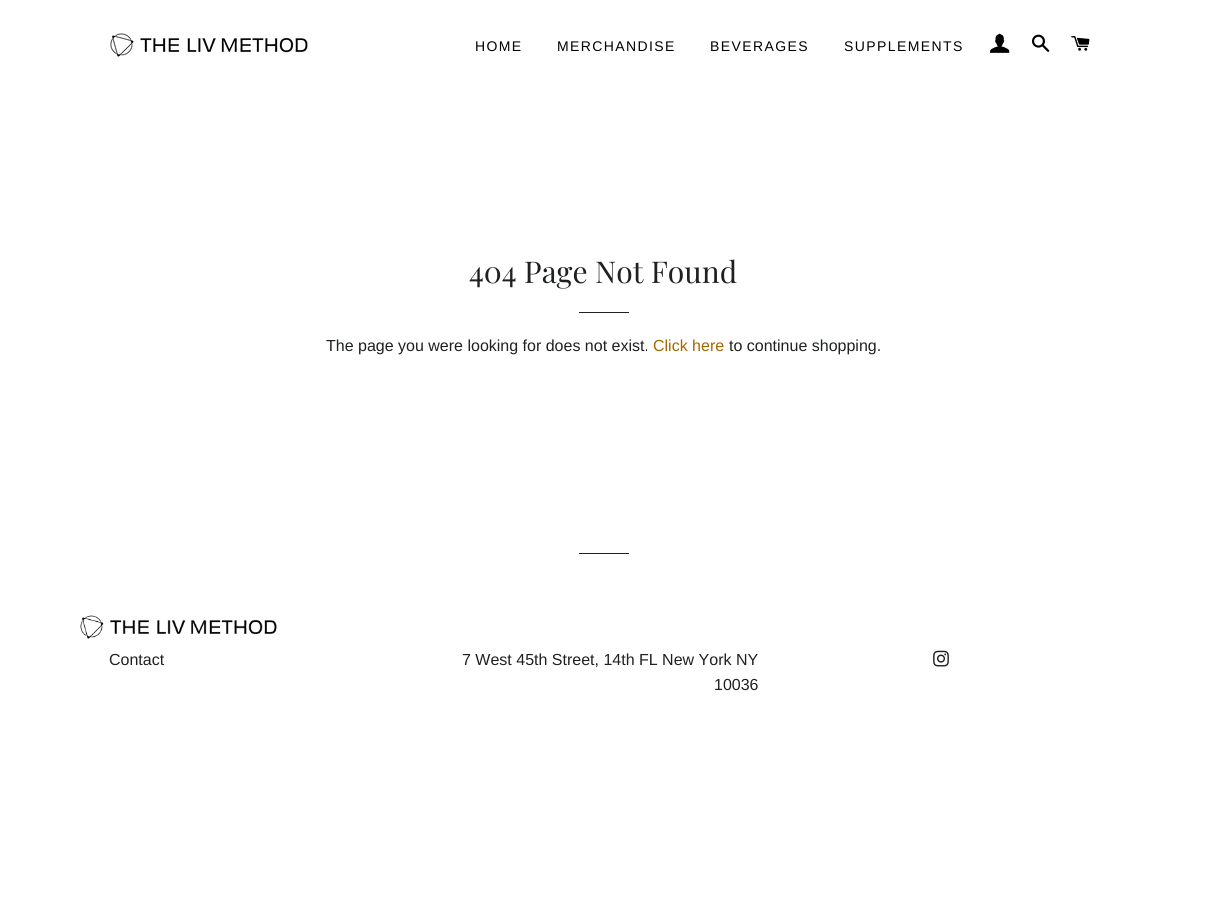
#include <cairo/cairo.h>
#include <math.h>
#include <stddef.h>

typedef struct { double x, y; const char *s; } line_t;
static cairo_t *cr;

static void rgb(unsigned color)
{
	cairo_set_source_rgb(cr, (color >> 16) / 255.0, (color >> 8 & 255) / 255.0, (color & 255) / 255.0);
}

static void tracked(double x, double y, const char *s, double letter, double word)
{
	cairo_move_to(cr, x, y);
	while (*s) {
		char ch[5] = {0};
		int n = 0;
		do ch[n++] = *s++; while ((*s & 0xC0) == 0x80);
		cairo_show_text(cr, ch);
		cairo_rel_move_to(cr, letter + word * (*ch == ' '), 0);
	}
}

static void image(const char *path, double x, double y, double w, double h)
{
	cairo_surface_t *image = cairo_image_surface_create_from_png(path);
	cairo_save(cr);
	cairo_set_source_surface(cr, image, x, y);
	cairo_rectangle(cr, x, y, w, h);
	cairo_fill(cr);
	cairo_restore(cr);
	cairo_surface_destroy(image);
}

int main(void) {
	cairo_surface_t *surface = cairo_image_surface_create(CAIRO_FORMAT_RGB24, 1207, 898);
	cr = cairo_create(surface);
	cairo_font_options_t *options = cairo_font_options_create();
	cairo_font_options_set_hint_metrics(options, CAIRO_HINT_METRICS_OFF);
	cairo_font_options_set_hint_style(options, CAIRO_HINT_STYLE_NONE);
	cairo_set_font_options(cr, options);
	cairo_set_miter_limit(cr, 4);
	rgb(0xffffff);
	cairo_paint(cr);
	image("img/1.png", 110, 33, 198, 24);
	image("img/2.png", 990, 33, 20, 20);
	image("img/3.png", 1032, 34, 18, 18);
	image("img/4.png", 1071, 36, 19, 15);
	rgb(0x1f2021);
	cairo_rectangle(cr, 579, 312, 50, 1);
	cairo_fill(cr);
	cairo_rectangle(cr, 579, 553, 50, 1);
	cairo_fill(cr);
	image("img/5.png", 80, 615, 197, 24);
	image("img/6.png", 933, 650, 16, 17);
	cairo_select_font_face(cr, "Liberation Sans", CAIRO_FONT_SLANT_NORMAL, CAIRO_FONT_WEIGHT_NORMAL);
	cairo_set_font_size(cr, 14);
	rgb(0x000000);
	{
		static const line_t items[] = {
			{475, 51, "HOME"},
			{557, 51, "MERCHANDISE"},
			{710, 51, "BEVERAGES"},
			{844, 51, "SUPPLEMENTS"},
		};
		for (size_t i = 0; i < sizeof items / sizeof *items; i++) {
			tracked(items[i].x, items[i].y, items[i].s, 1.4, 0);
		}
	}
	cairo_select_font_face(cr, "Playfair Display", CAIRO_FONT_SLANT_NORMAL, CAIRO_FONT_WEIGHT_NORMAL);
	cairo_set_font_size(cr, 30);
	rgb(0x1f2021);
	cairo_move_to(cr, 469, 283);
	cairo_show_text(cr, "404 Page Not Found");
	cairo_select_font_face(cr, "Liberation Sans", CAIRO_FONT_SLANT_NORMAL, CAIRO_FONT_WEIGHT_NORMAL);
	cairo_set_font_size(cr, 16);
	cairo_move_to(cr, 326, 351);
	cairo_show_text(cr, "The page you were looking for does not exist.");
	rgb(0xa56600);
	cairo_move_to(cr, 653, 351);
	cairo_show_text(cr, "Click here");
	rgb(0x1f2021);
	{
		static const line_t items[] = {
			{729, 351, "to continue shopping."},
			{109, 665, "Contact"},
			{462, 665, "7 West 45th Street, 14th FL New York NY"},
			{714, 690, "10036"},
		};
		for (size_t i = 0; i < sizeof items / sizeof *items; i++) {
			cairo_move_to(cr, items[i].x, items[i].y);
			cairo_show_text(cr, items[i].s);
		}
	}
	cairo_surface_write_to_png(surface, "page.png");
	cairo_font_options_destroy(options);
	cairo_destroy(cr);
	cairo_surface_destroy(surface);
	return 0;
}
